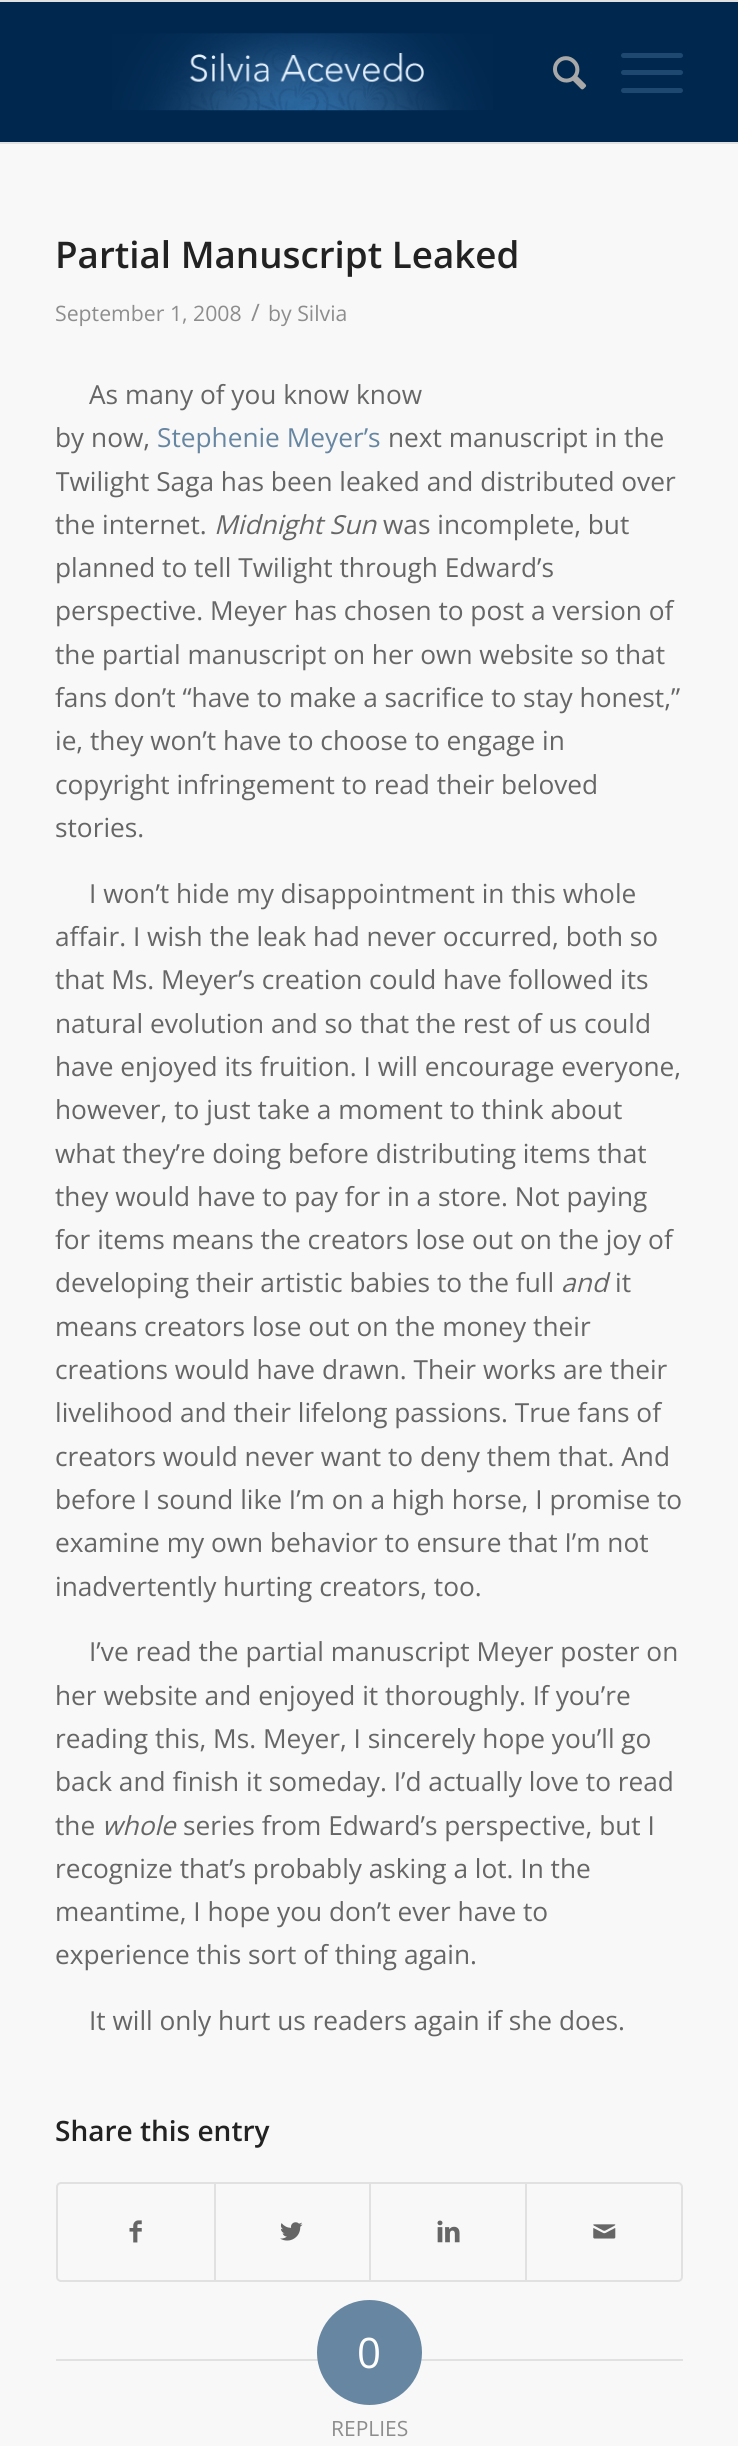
#include <cairo/cairo.h>
#include <math.h>
#include <stddef.h>

typedef struct { double x, y; const char *s; } line_t;
typedef struct { double x, y, w, h; unsigned color; } box_t;
static cairo_t *cr;

static void rgb(unsigned color)
{
	cairo_set_source_rgb(cr, (color >> 16) / 255.0, (color >> 8 & 255) / 255.0, (color & 255) / 255.0);
}

static void rrect(double x, double y, double w, double h, double r)
{
	cairo_new_sub_path(cr);
	cairo_arc(cr, x + w - r, y + h - r, r, 0, M_PI / 2);
	cairo_arc(cr, x + r, y + h - r, r, M_PI / 2, M_PI);
	cairo_arc(cr, x + r, y + r, r, M_PI, 1.5 * M_PI);
	cairo_arc(cr, x + w - r, y + r, r, 1.5 * M_PI, 2 * M_PI);
	cairo_close_path(cr);
}

static void image(const char *path, double x, double y, double w, double h)
{
	cairo_surface_t *image = cairo_image_surface_create_from_png(path);
	cairo_save(cr);
	cairo_set_source_surface(cr, image, x, y);
	cairo_rectangle(cr, x, y, w, h);
	cairo_fill(cr);
	cairo_restore(cr);
	cairo_surface_destroy(image);
}

int main(void) {
	cairo_surface_t *surface = cairo_image_surface_create(CAIRO_FORMAT_RGB24, 738, 2446);
	cr = cairo_create(surface);
	cairo_font_options_t *options = cairo_font_options_create();
	cairo_font_options_set_hint_metrics(options, CAIRO_HINT_METRICS_OFF);
	cairo_font_options_set_hint_style(options, CAIRO_HINT_STYLE_NONE);
	cairo_set_font_options(cr, options);
	cairo_set_miter_limit(cr, 4);
	rgb(0xf8f8f8);
	cairo_paint(cr);
	{
		static const box_t items[] = {
			{0, 0, 738, 2, 0xe1e1e1},
			{0, 142, 738, 2, 0xe1e1e1},
			{0, 2, 738, 140, 0x00274d},
		};
		for (size_t i = 0; i < sizeof items / sizeof *items; i++) {
			rgb(items[i].color);
			cairo_rectangle(cr, items[i].x, items[i].y, items[i].w, items[i].h);
			cairo_fill(cr);
		}
	}
	image("img/1.png", 112, 33, 381, 78);
	image("img/2.png", 553, 56, 34, 34);
	rgb(0x1e4870);
	rrect(621, 70, 62, 5, 2.5);
	cairo_fill(cr);
	rrect(621, 53, 62, 5, 2.5);
	cairo_fill(cr);
	rrect(621, 88, 62, 5, 2.5);
	cairo_fill(cr);
	rrect(57, 2183, 625, 98, 4);
	rgb(0xe1e1e1);
	cairo_stroke(cr);
	image("img/3.png", 129, 2220, 13, 23);
	cairo_rectangle(cr, 214, 2184, 2, 96);
	cairo_fill(cr);
	image("img/4.png", 280, 2222, 23, 19);
	cairo_rectangle(cr, 369, 2184, 2, 96);
	cairo_fill(cr);
	image("img/5.png", 437, 2220, 23, 23);
	cairo_rectangle(cr, 525, 2184, 2, 96);
	cairo_fill(cr);
	image("img/6.png", 593, 2224, 23, 15);
	cairo_rectangle(cr, 56, 2359, 263, 2);
	cairo_fill(cr);
	cairo_rectangle(cr, 420, 2359, 263, 2);
	cairo_fill(cr);
	rgb(0x6786a1);
	cairo_arc(cr, 369.5, 2352.5, 52.5, 0, 2 * M_PI);
	cairo_fill(cr);
	cairo_select_font_face(cr, "Open Sans SemiBold", CAIRO_FONT_SLANT_NORMAL, CAIRO_FONT_WEIGHT_NORMAL);
	cairo_set_font_size(cr, 36.75);
	rgb(0x222222);
	cairo_move_to(cr, 55, 268);
	cairo_show_text(cr, "Partial Manuscript Leaked");
	cairo_select_font_face(cr, "Open Sans", CAIRO_FONT_SLANT_NORMAL, CAIRO_FONT_WEIGHT_NORMAL);
	cairo_set_font_size(cr, 21.25);
	rgb(0x8d8d8d);
	cairo_move_to(cr, 55, 321);
	cairo_show_text(cr, "September 1, 2008");
	cairo_set_font_size(cr, 24);
	cairo_move_to(cr, 251, 321);
	cairo_show_text(cr, "/");
	cairo_set_font_size(cr, 21.25);
	cairo_move_to(cr, 268, 321);
	cairo_show_text(cr, "by Silvia");
	cairo_set_font_size(cr, 26.25);
	rgb(0x666666);
	cairo_move_to(cr, 89, 404);
	cairo_show_text(cr, "As many of you know know");
	cairo_move_to(cr, 55, 447);
	cairo_show_text(cr, "by now,");
	rgb(0x6786a1);
	cairo_move_to(cr, 157, 447);
	cairo_show_text(cr, "Stephenie Meyer’s");
	rgb(0x666666);
	cairo_move_to(cr, 388, 447);
	cairo_show_text(cr, "next manuscript in the");
	cairo_save(cr);
	cairo_rectangle(cr, 56, 231, 627, 2069);
	cairo_clip(cr);
	cairo_move_to(cr, 55, 491);
	cairo_show_text(cr, "Twilight Saga has been leaked and distributed over");
	cairo_restore(cr);
	cairo_move_to(cr, 55, 534);
	cairo_show_text(cr, "the internet.");
	cairo_select_font_face(cr, "Open Sans", CAIRO_FONT_SLANT_ITALIC, CAIRO_FONT_WEIGHT_NORMAL);
	cairo_move_to(cr, 214, 534);
	cairo_show_text(cr, "Midnight Sun");
	cairo_select_font_face(cr, "Open Sans", CAIRO_FONT_SLANT_NORMAL, CAIRO_FONT_WEIGHT_NORMAL);
	{
		static const line_t items[] = {
			{383, 534, "was incomplete, but"},
			{55, 577, "planned to tell Twilight through Edward’s"},
			{55, 620, "perspective. Meyer has chosen to post a version of"},
			{55, 664, "the partial manuscript on her own website so that"},
			{55, 707, "fans don’t “have to make a sacrifice to stay honest,”"},
			{55, 750, "ie, they won’t have to choose to engage in"},
			{55, 794, "copyright infringement to read their beloved"},
			{55, 837, "stories."},
			{89, 903, "I won’t hide my disappointment in this whole"},
			{55, 946, "affair. I wish the leak had never occurred, both so"},
			{55, 989, "that Ms. Meyer’s creation could have followed its"},
			{55, 1033, "natural evolution and so that the rest of us could"},
			{55, 1076, "have enjoyed its fruition. I will encourage everyone,"},
			{55, 1119, "however, to just take a moment to think about"},
			{55, 1163, "what they’re doing before distributing items that"},
			{55, 1206, "they would have to pay for in a store. Not paying"},
			{55, 1249, "for items means the creators lose out on the joy of"},
			{55, 1292, "developing their artistic babies to the full"},
		};
		for (size_t i = 0; i < sizeof items / sizeof *items; i++) {
			cairo_move_to(cr, items[i].x, items[i].y);
			cairo_show_text(cr, items[i].s);
		}
	}
	cairo_select_font_face(cr, "Open Sans", CAIRO_FONT_SLANT_ITALIC, CAIRO_FONT_WEIGHT_NORMAL);
	cairo_move_to(cr, 561, 1292);
	cairo_show_text(cr, "and");
	cairo_select_font_face(cr, "Open Sans", CAIRO_FONT_SLANT_NORMAL, CAIRO_FONT_WEIGHT_NORMAL);
	{
		static const line_t items[] = {
			{615, 1292, "it"},
			{55, 1336, "means creators lose out on the money their"},
			{55, 1379, "creations would have drawn. Their works are their"},
			{55, 1422, "livelihood and their lifelong passions. True fans of"},
			{55, 1466, "creators would never want to deny them that. And"},
			{55, 1509, "before I sound like I’m on a high horse, I promise to"},
			{55, 1552, "examine my own behavior to ensure that I’m not"},
			{55, 1596, "inadvertently hurting creators, too."},
			{89, 1661, "I’ve read the partial manuscript Meyer poster on"},
			{55, 1705, "her website and enjoyed it thoroughly. If you’re"},
			{55, 1748, "reading this, Ms. Meyer, I sincerely hope you’ll go"},
			{55, 1791, "back and finish it someday. I’d actually love to read"},
			{55, 1835, "the"},
		};
		for (size_t i = 0; i < sizeof items / sizeof *items; i++) {
			cairo_move_to(cr, items[i].x, items[i].y);
			cairo_show_text(cr, items[i].s);
		}
	}
	cairo_select_font_face(cr, "Open Sans", CAIRO_FONT_SLANT_ITALIC, CAIRO_FONT_WEIGHT_NORMAL);
	cairo_move_to(cr, 102, 1835);
	cairo_show_text(cr, "whole");
	cairo_select_font_face(cr, "Open Sans", CAIRO_FONT_SLANT_NORMAL, CAIRO_FONT_WEIGHT_NORMAL);
	{
		static const line_t items[] = {
			{183, 1835, "series from Edward’s perspective, but I"},
			{55, 1878, "recognize that’s probably asking a lot. In the"},
			{55, 1921, "meantime, I hope you don’t ever have to"},
			{55, 1964, "experience this sort of thing again."},
			{89, 2030, "It will only hurt us readers again if she does."},
		};
		for (size_t i = 0; i < sizeof items / sizeof *items; i++) {
			cairo_move_to(cr, items[i].x, items[i].y);
			cairo_show_text(cr, items[i].s);
		}
	}
	cairo_select_font_face(cr, "Open Sans SemiBold", CAIRO_FONT_SLANT_NORMAL, CAIRO_FONT_WEIGHT_NORMAL);
	cairo_set_font_size(cr, 28);
	rgb(0x222222);
	cairo_move_to(cr, 55, 2141);
	cairo_show_text(cr, "Share this entry");
	cairo_select_font_face(cr, "Open Sans", CAIRO_FONT_SLANT_NORMAL, CAIRO_FONT_WEIGHT_NORMAL);
	cairo_set_font_size(cr, 42);
	rgb(0xffffff);
	cairo_move_to(cr, 357, 2368);
	cairo_show_text(cr, "0");
	cairo_set_font_size(cr, 21);
	rgb(0x8d8d8d);
	cairo_move_to(cr, 331, 2436);
	cairo_show_text(cr, "REPLIES");
	cairo_surface_write_to_png(surface, "page.png");
	cairo_font_options_destroy(options);
	cairo_destroy(cr);
	cairo_surface_destroy(surface);
	return 0;
}
